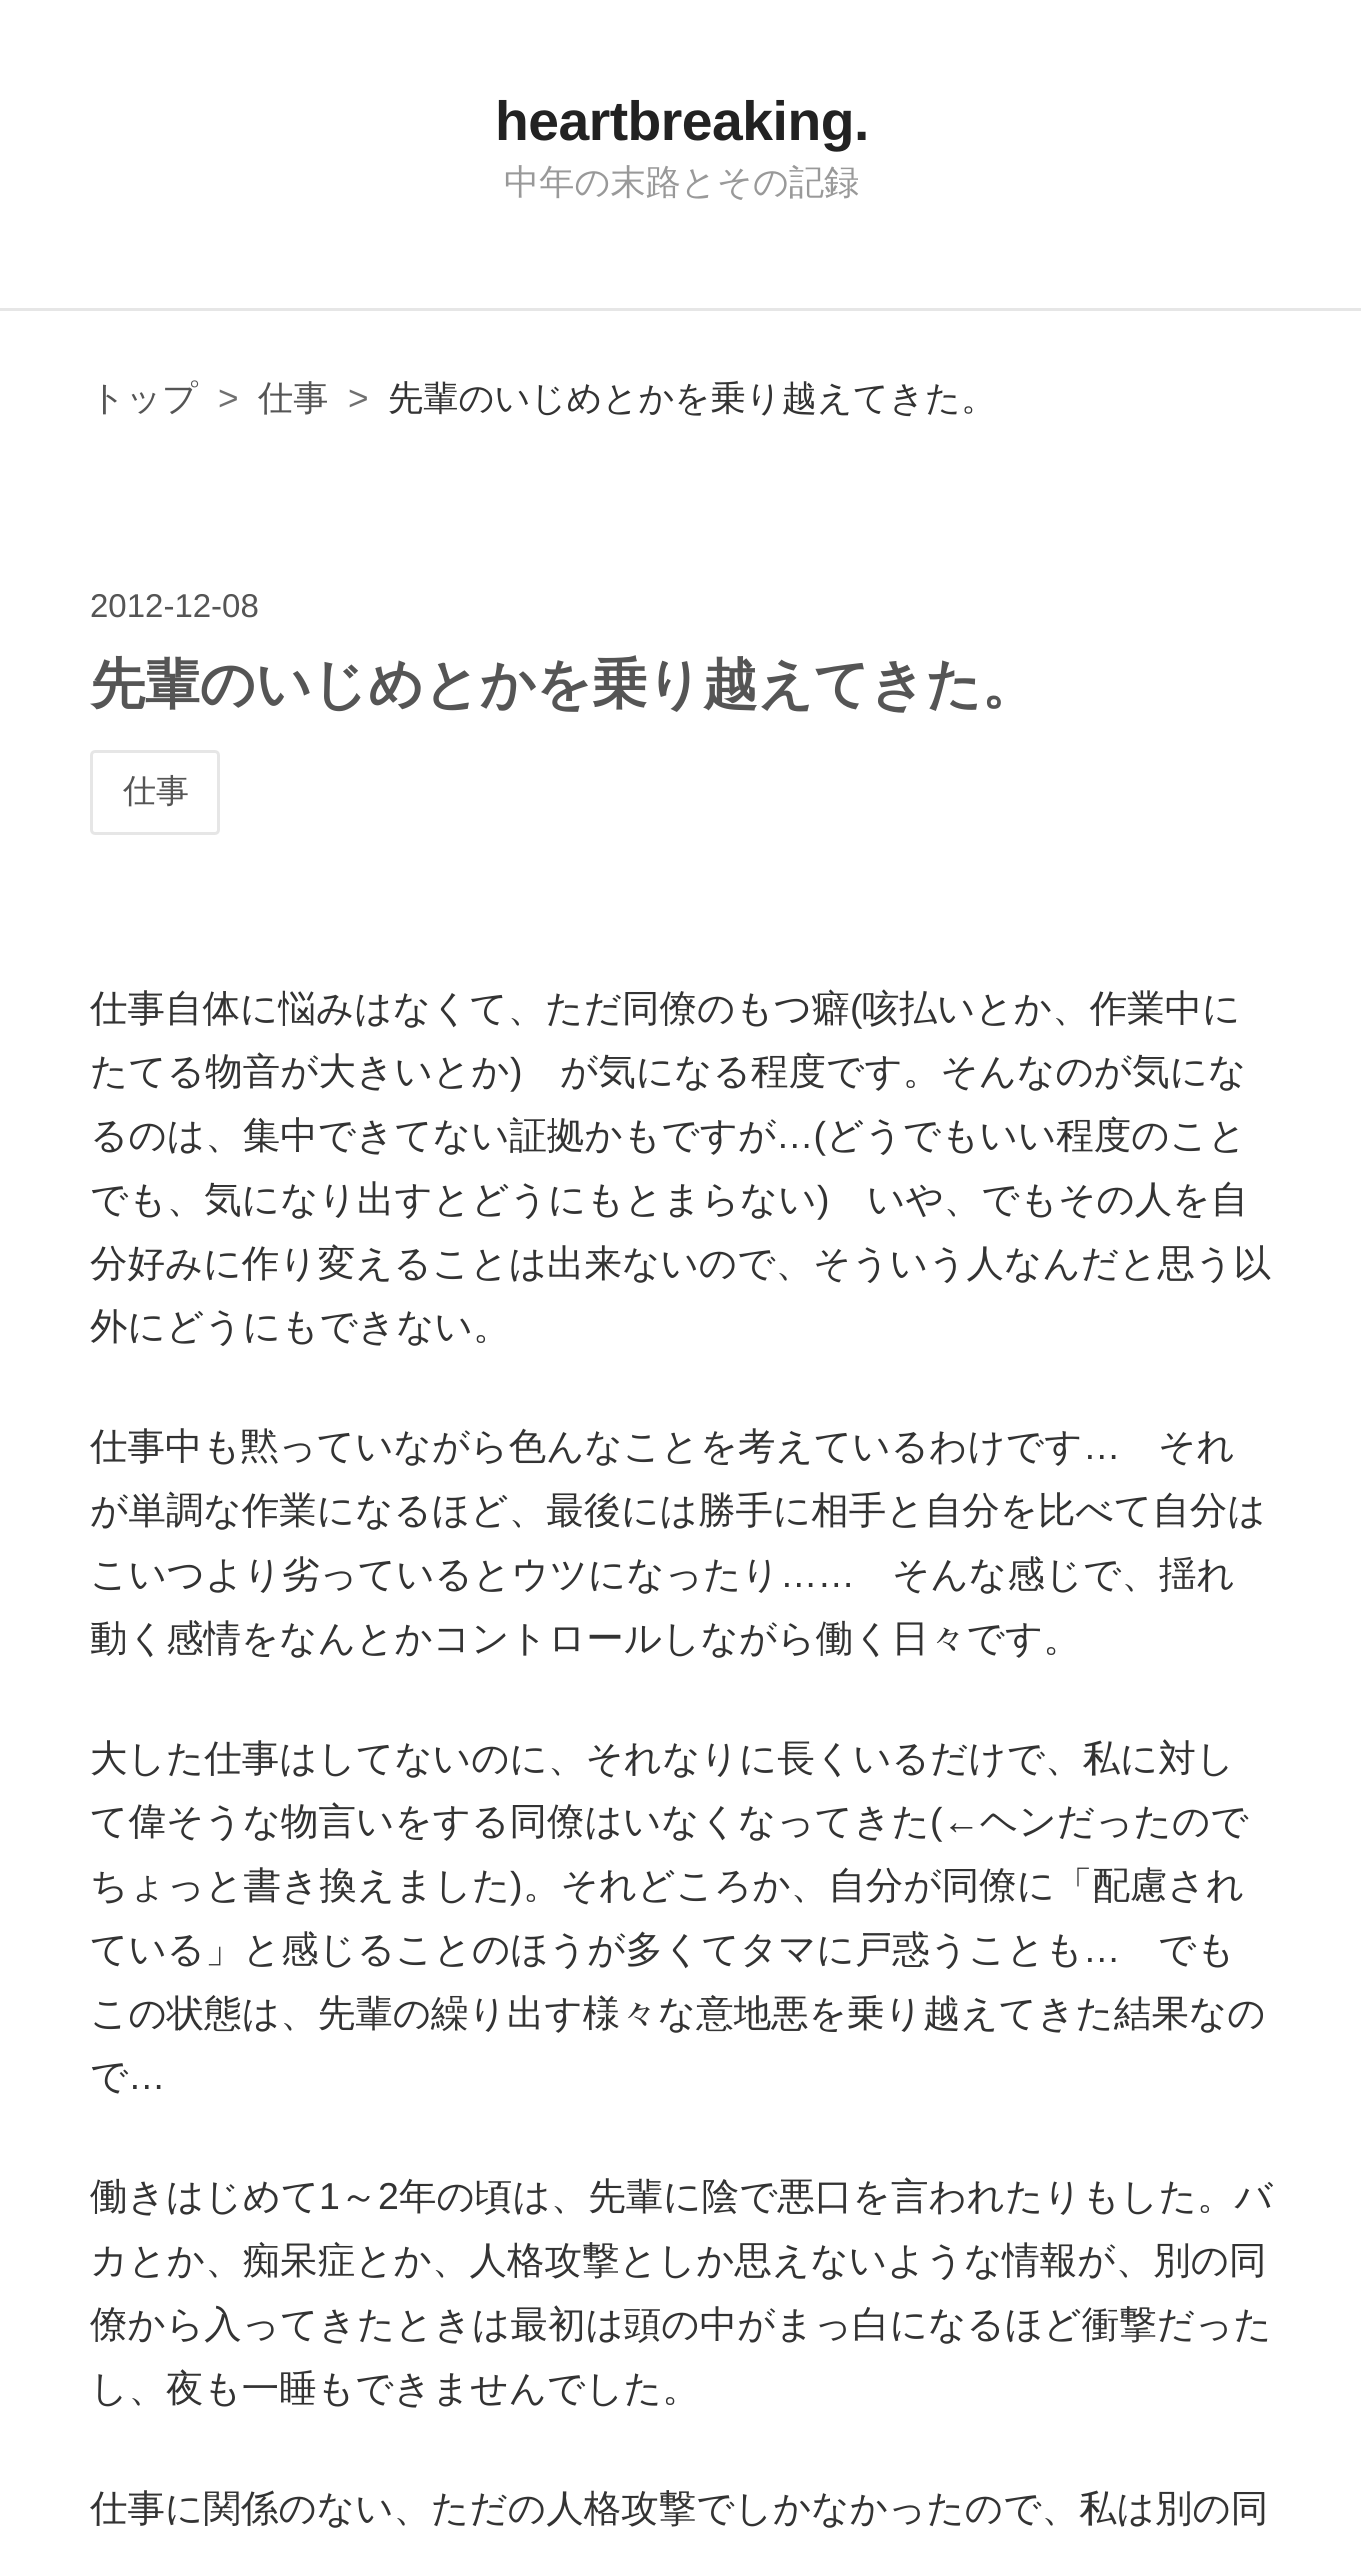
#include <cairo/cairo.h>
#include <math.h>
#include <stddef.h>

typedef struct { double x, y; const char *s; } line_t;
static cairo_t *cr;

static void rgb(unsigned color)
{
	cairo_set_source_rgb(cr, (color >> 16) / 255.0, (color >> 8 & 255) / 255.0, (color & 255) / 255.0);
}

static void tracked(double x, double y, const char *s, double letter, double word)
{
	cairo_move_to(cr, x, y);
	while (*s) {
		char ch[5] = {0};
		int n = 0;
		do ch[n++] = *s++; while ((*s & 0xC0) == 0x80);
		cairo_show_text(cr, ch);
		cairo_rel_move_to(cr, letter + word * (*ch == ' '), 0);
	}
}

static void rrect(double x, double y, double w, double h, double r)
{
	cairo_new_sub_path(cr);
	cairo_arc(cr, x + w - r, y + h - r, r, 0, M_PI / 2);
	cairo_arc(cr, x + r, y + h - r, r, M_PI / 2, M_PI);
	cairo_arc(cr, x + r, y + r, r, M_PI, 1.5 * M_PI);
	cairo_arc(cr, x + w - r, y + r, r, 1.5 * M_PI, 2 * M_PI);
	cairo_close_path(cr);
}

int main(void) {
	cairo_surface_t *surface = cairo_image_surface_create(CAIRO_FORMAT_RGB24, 1361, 2564);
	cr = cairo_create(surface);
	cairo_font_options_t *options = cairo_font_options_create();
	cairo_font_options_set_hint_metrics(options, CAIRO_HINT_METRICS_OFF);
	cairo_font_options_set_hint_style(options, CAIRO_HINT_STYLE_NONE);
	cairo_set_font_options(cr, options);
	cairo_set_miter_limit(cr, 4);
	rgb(0xffffff);
	cairo_paint(cr);
	rgb(0xe6e6e6);
	cairo_rectangle(cr, 0, 308, 1361, 3);
	cairo_fill(cr);
	rrect(91.5, 751.5, 127, 82, 3.5);
	cairo_set_line_width(cr, 3);
	cairo_stroke(cr);
	cairo_select_font_face(cr, "Liberation Sans", CAIRO_FONT_SLANT_NORMAL, CAIRO_FONT_WEIGHT_BOLD);
	cairo_set_font_size(cr, 55.25);
	rgb(0x222222);
	tracked(495, 140, "heartbreaking.", -0.5, 0);
	cairo_select_font_face(cr, "WenQuanYi Zen Hei Medium", CAIRO_FONT_SLANT_NORMAL, CAIRO_FONT_WEIGHT_NORMAL);
	cairo_set_font_size(cr, 35.2);
	rgb(0x999999);
	cairo_move_to(cr, 504, 194);
	cairo_show_text(cr, "中年の末路とその記録");
	rgb(0x555555);
	cairo_move_to(cr, 90, 410);
	cairo_show_text(cr, "トップ");
	cairo_select_font_face(cr, "Liberation Sans", CAIRO_FONT_SLANT_NORMAL, CAIRO_FONT_WEIGHT_NORMAL);
	rgb(0x707070);
	cairo_move_to(cr, 218, 410);
	cairo_show_text(cr, ">");
	cairo_select_font_face(cr, "WenQuanYi Zen Hei Medium", CAIRO_FONT_SLANT_NORMAL, CAIRO_FONT_WEIGHT_NORMAL);
	rgb(0x555555);
	cairo_move_to(cr, 258, 410);
	cairo_show_text(cr, "仕事");
	cairo_select_font_face(cr, "Liberation Sans", CAIRO_FONT_SLANT_NORMAL, CAIRO_FONT_WEIGHT_NORMAL);
	rgb(0x707070);
	cairo_move_to(cr, 348, 410);
	cairo_show_text(cr, ">");
	cairo_select_font_face(cr, "WenQuanYi Zen Hei Medium", CAIRO_FONT_SLANT_NORMAL, CAIRO_FONT_WEIGHT_NORMAL);
	rgb(0x333333);
	cairo_move_to(cr, 388, 410);
	cairo_show_text(cr, "先輩のいじめとかを乗り越えてきた。");
	cairo_select_font_face(cr, "Liberation Sans", CAIRO_FONT_SLANT_NORMAL, CAIRO_FONT_WEIGHT_NORMAL);
	cairo_set_font_size(cr, 33);
	rgb(0x555555);
	cairo_move_to(cr, 90, 617);
	cairo_show_text(cr, "2012-12-08");
	cairo_select_font_face(cr, "WenQuanYi Zen Hei", CAIRO_FONT_SLANT_NORMAL, CAIRO_FONT_WEIGHT_BOLD);
	cairo_set_font_size(cr, 55.25);
	tracked(90, 703, "先輩のいじめとかを乗り越えてきた。", -0.5, 0);
	cairo_select_font_face(cr, "WenQuanYi Zen Hei Medium", CAIRO_FONT_SLANT_NORMAL, CAIRO_FONT_WEIGHT_NORMAL);
	cairo_set_font_size(cr, 33);
	cairo_move_to(cr, 123, 802);
	cairo_show_text(cr, "仕事");
	cairo_set_font_size(cr, 37.5);
	rgb(0x333333);
	cairo_move_to(cr, 90, 1021);
	cairo_show_text(cr, "仕事自体に悩みはなくて、ただ同僚のもつ癖");
	cairo_select_font_face(cr, "Liberation Sans", CAIRO_FONT_SLANT_NORMAL, CAIRO_FONT_WEIGHT_NORMAL);
	cairo_move_to(cr, 850, 1021);
	cairo_show_text(cr, "(");
	cairo_select_font_face(cr, "WenQuanYi Zen Hei Medium", CAIRO_FONT_SLANT_NORMAL, CAIRO_FONT_WEIGHT_NORMAL);
	cairo_move_to(cr, 862, 1021);
	cairo_show_text(cr, "咳払いとか、作業中に");
	cairo_move_to(cr, 90, 1084);
	cairo_show_text(cr, "たてる物音が大きいとか");
	cairo_select_font_face(cr, "Liberation Sans", CAIRO_FONT_SLANT_NORMAL, CAIRO_FONT_WEIGHT_NORMAL);
	cairo_move_to(cr, 510, 1084);
	cairo_show_text(cr, ")");
	cairo_select_font_face(cr, "WenQuanYi Zen Hei Medium", CAIRO_FONT_SLANT_NORMAL, CAIRO_FONT_WEIGHT_NORMAL);
	cairo_move_to(cr, 560, 1084);
	cairo_show_text(cr, "が気になる程度です。そんなのが気にな");
	cairo_move_to(cr, 90, 1148);
	cairo_show_text(cr, "るのは、集中できてない証拠かもですが");
	cairo_select_font_face(cr, "Liberation Sans", CAIRO_FONT_SLANT_NORMAL, CAIRO_FONT_WEIGHT_NORMAL);
	cairo_move_to(cr, 776, 1148);
	cairo_show_text(cr, "…(");
	cairo_select_font_face(cr, "WenQuanYi Zen Hei Medium", CAIRO_FONT_SLANT_NORMAL, CAIRO_FONT_WEIGHT_NORMAL);
	cairo_move_to(cr, 826, 1148);
	cairo_show_text(cr, "どうでもいい程度のこと");
	cairo_move_to(cr, 90, 1212);
	cairo_show_text(cr, "でも、気になり出すとどうにもとまらない");
	cairo_select_font_face(cr, "Liberation Sans", CAIRO_FONT_SLANT_NORMAL, CAIRO_FONT_WEIGHT_NORMAL);
	cairo_move_to(cr, 817, 1212);
	cairo_show_text(cr, ")");
	cairo_select_font_face(cr, "WenQuanYi Zen Hei Medium", CAIRO_FONT_SLANT_NORMAL, CAIRO_FONT_WEIGHT_NORMAL);
	{
		static const line_t items[] = {
			{867, 1212, "いや、でもその人を自"},
			{90, 1276, "分好みに作り変えることは出来ないので、そういう人なんだと思う以"},
			{90, 1339, "外にどうにもできない。"},
			{90, 1459, "仕事中も黙っていながら色んなことを考えているわけです"},
		};
		for (size_t i = 0; i < sizeof items / sizeof *items; i++) {
			cairo_move_to(cr, items[i].x, items[i].y);
			cairo_show_text(cr, items[i].s);
		}
	}
	cairo_select_font_face(cr, "Liberation Sans", CAIRO_FONT_SLANT_NORMAL, CAIRO_FONT_WEIGHT_NORMAL);
	cairo_move_to(cr, 1083, 1459);
	cairo_show_text(cr, "…");
	cairo_select_font_face(cr, "WenQuanYi Zen Hei Medium", CAIRO_FONT_SLANT_NORMAL, CAIRO_FONT_WEIGHT_NORMAL);
	{
		static const line_t items[] = {
			{1158, 1459, "それ"},
			{90, 1523, "が単調な作業になるほど、最後には勝手に相手と自分を比べて自分は"},
			{90, 1587, "こいつより劣っているとウツになったり"},
		};
		for (size_t i = 0; i < sizeof items / sizeof *items; i++) {
			cairo_move_to(cr, items[i].x, items[i].y);
			cairo_show_text(cr, items[i].s);
		}
	}
	cairo_select_font_face(cr, "Liberation Sans", CAIRO_FONT_SLANT_NORMAL, CAIRO_FONT_WEIGHT_NORMAL);
	cairo_move_to(cr, 780, 1587);
	cairo_show_text(cr, "……");
	cairo_select_font_face(cr, "WenQuanYi Zen Hei Medium", CAIRO_FONT_SLANT_NORMAL, CAIRO_FONT_WEIGHT_NORMAL);
	{
		static const line_t items[] = {
			{892, 1587, "そんな感じで、揺れ"},
			{90, 1651, "動く感情をなんとかコントロールしながら働く日々です。"},
			{90, 1771, "大した仕事はしてないのに、それなりに長くいるだけで、私に対し"},
			{90, 1834, "て偉そうな物言いをする同僚はいなくなってきた"},
		};
		for (size_t i = 0; i < sizeof items / sizeof *items; i++) {
			cairo_move_to(cr, items[i].x, items[i].y);
			cairo_show_text(cr, items[i].s);
		}
	}
	cairo_select_font_face(cr, "Liberation Sans", CAIRO_FONT_SLANT_NORMAL, CAIRO_FONT_WEIGHT_NORMAL);
	cairo_move_to(cr, 930, 1834);
	cairo_show_text(cr, "(←");
	cairo_select_font_face(cr, "WenQuanYi Zen Hei Medium", CAIRO_FONT_SLANT_NORMAL, CAIRO_FONT_WEIGHT_NORMAL);
	cairo_move_to(cr, 980, 1834);
	cairo_show_text(cr, "ヘンだったので");
	cairo_move_to(cr, 90, 1898);
	cairo_show_text(cr, "ちょっと書き換えました");
	cairo_select_font_face(cr, "Liberation Sans", CAIRO_FONT_SLANT_NORMAL, CAIRO_FONT_WEIGHT_NORMAL);
	cairo_move_to(cr, 510, 1898);
	cairo_show_text(cr, ")");
	cairo_select_font_face(cr, "WenQuanYi Zen Hei Medium", CAIRO_FONT_SLANT_NORMAL, CAIRO_FONT_WEIGHT_NORMAL);
	cairo_move_to(cr, 523, 1898);
	cairo_show_text(cr, "。それどころか、自分が同僚に「配慮され");
	cairo_move_to(cr, 90, 1962);
	cairo_show_text(cr, "ている」と感じることのほうが多くてタマに戸惑うことも");
	cairo_select_font_face(cr, "Liberation Sans", CAIRO_FONT_SLANT_NORMAL, CAIRO_FONT_WEIGHT_NORMAL);
	cairo_move_to(cr, 1083, 1962);
	cairo_show_text(cr, "…");
	cairo_select_font_face(cr, "WenQuanYi Zen Hei Medium", CAIRO_FONT_SLANT_NORMAL, CAIRO_FONT_WEIGHT_NORMAL);
	{
		static const line_t items[] = {
			{1158, 1962, "でも"},
			{90, 2026, "この状態は、先輩の繰り出す様々な意地悪を乗り越えてきた結果なの"},
			{90, 2089, "で"},
		};
		for (size_t i = 0; i < sizeof items / sizeof *items; i++) {
			cairo_move_to(cr, items[i].x, items[i].y);
			cairo_show_text(cr, items[i].s);
		}
	}
	cairo_select_font_face(cr, "Liberation Sans", CAIRO_FONT_SLANT_NORMAL, CAIRO_FONT_WEIGHT_NORMAL);
	cairo_move_to(cr, 128, 2089);
	cairo_show_text(cr, "…");
	cairo_select_font_face(cr, "WenQuanYi Zen Hei Medium", CAIRO_FONT_SLANT_NORMAL, CAIRO_FONT_WEIGHT_NORMAL);
	cairo_move_to(cr, 90, 2209);
	cairo_show_text(cr, "働きはじめて");
	cairo_select_font_face(cr, "Liberation Sans", CAIRO_FONT_SLANT_NORMAL, CAIRO_FONT_WEIGHT_NORMAL);
	cairo_move_to(cr, 319, 2209);
	cairo_show_text(cr, "1");
	cairo_select_font_face(cr, "WenQuanYi Zen Hei Medium", CAIRO_FONT_SLANT_NORMAL, CAIRO_FONT_WEIGHT_NORMAL);
	cairo_move_to(cr, 340, 2209);
	cairo_show_text(cr, "～");
	cairo_select_font_face(cr, "Liberation Sans", CAIRO_FONT_SLANT_NORMAL, CAIRO_FONT_WEIGHT_NORMAL);
	cairo_move_to(cr, 378, 2209);
	cairo_show_text(cr, "2");
	cairo_select_font_face(cr, "WenQuanYi Zen Hei Medium", CAIRO_FONT_SLANT_NORMAL, CAIRO_FONT_WEIGHT_NORMAL);
	{
		static const line_t items[] = {
			{399, 2209, "年の頃は、先輩に陰で悪口を言われたりもした。バ"},
			{90, 2273, "カとか、痴呆症とか、人格攻撃としか思えないような情報が、別の同"},
			{90, 2337, "僚から入ってきたときは最初は頭の中がまっ白になるほど衝撃だった"},
			{90, 2401, "し、夜も一睡もできませんでした。"},
			{90, 2521, "仕事に関係のない、ただの人格攻撃でしかなかったので、私は別の同"},
		};
		for (size_t i = 0; i < sizeof items / sizeof *items; i++) {
			cairo_move_to(cr, items[i].x, items[i].y);
			cairo_show_text(cr, items[i].s);
		}
	}
	cairo_surface_write_to_png(surface, "page.png");
	cairo_font_options_destroy(options);
	cairo_destroy(cr);
	cairo_surface_destroy(surface);
	return 0;
}
